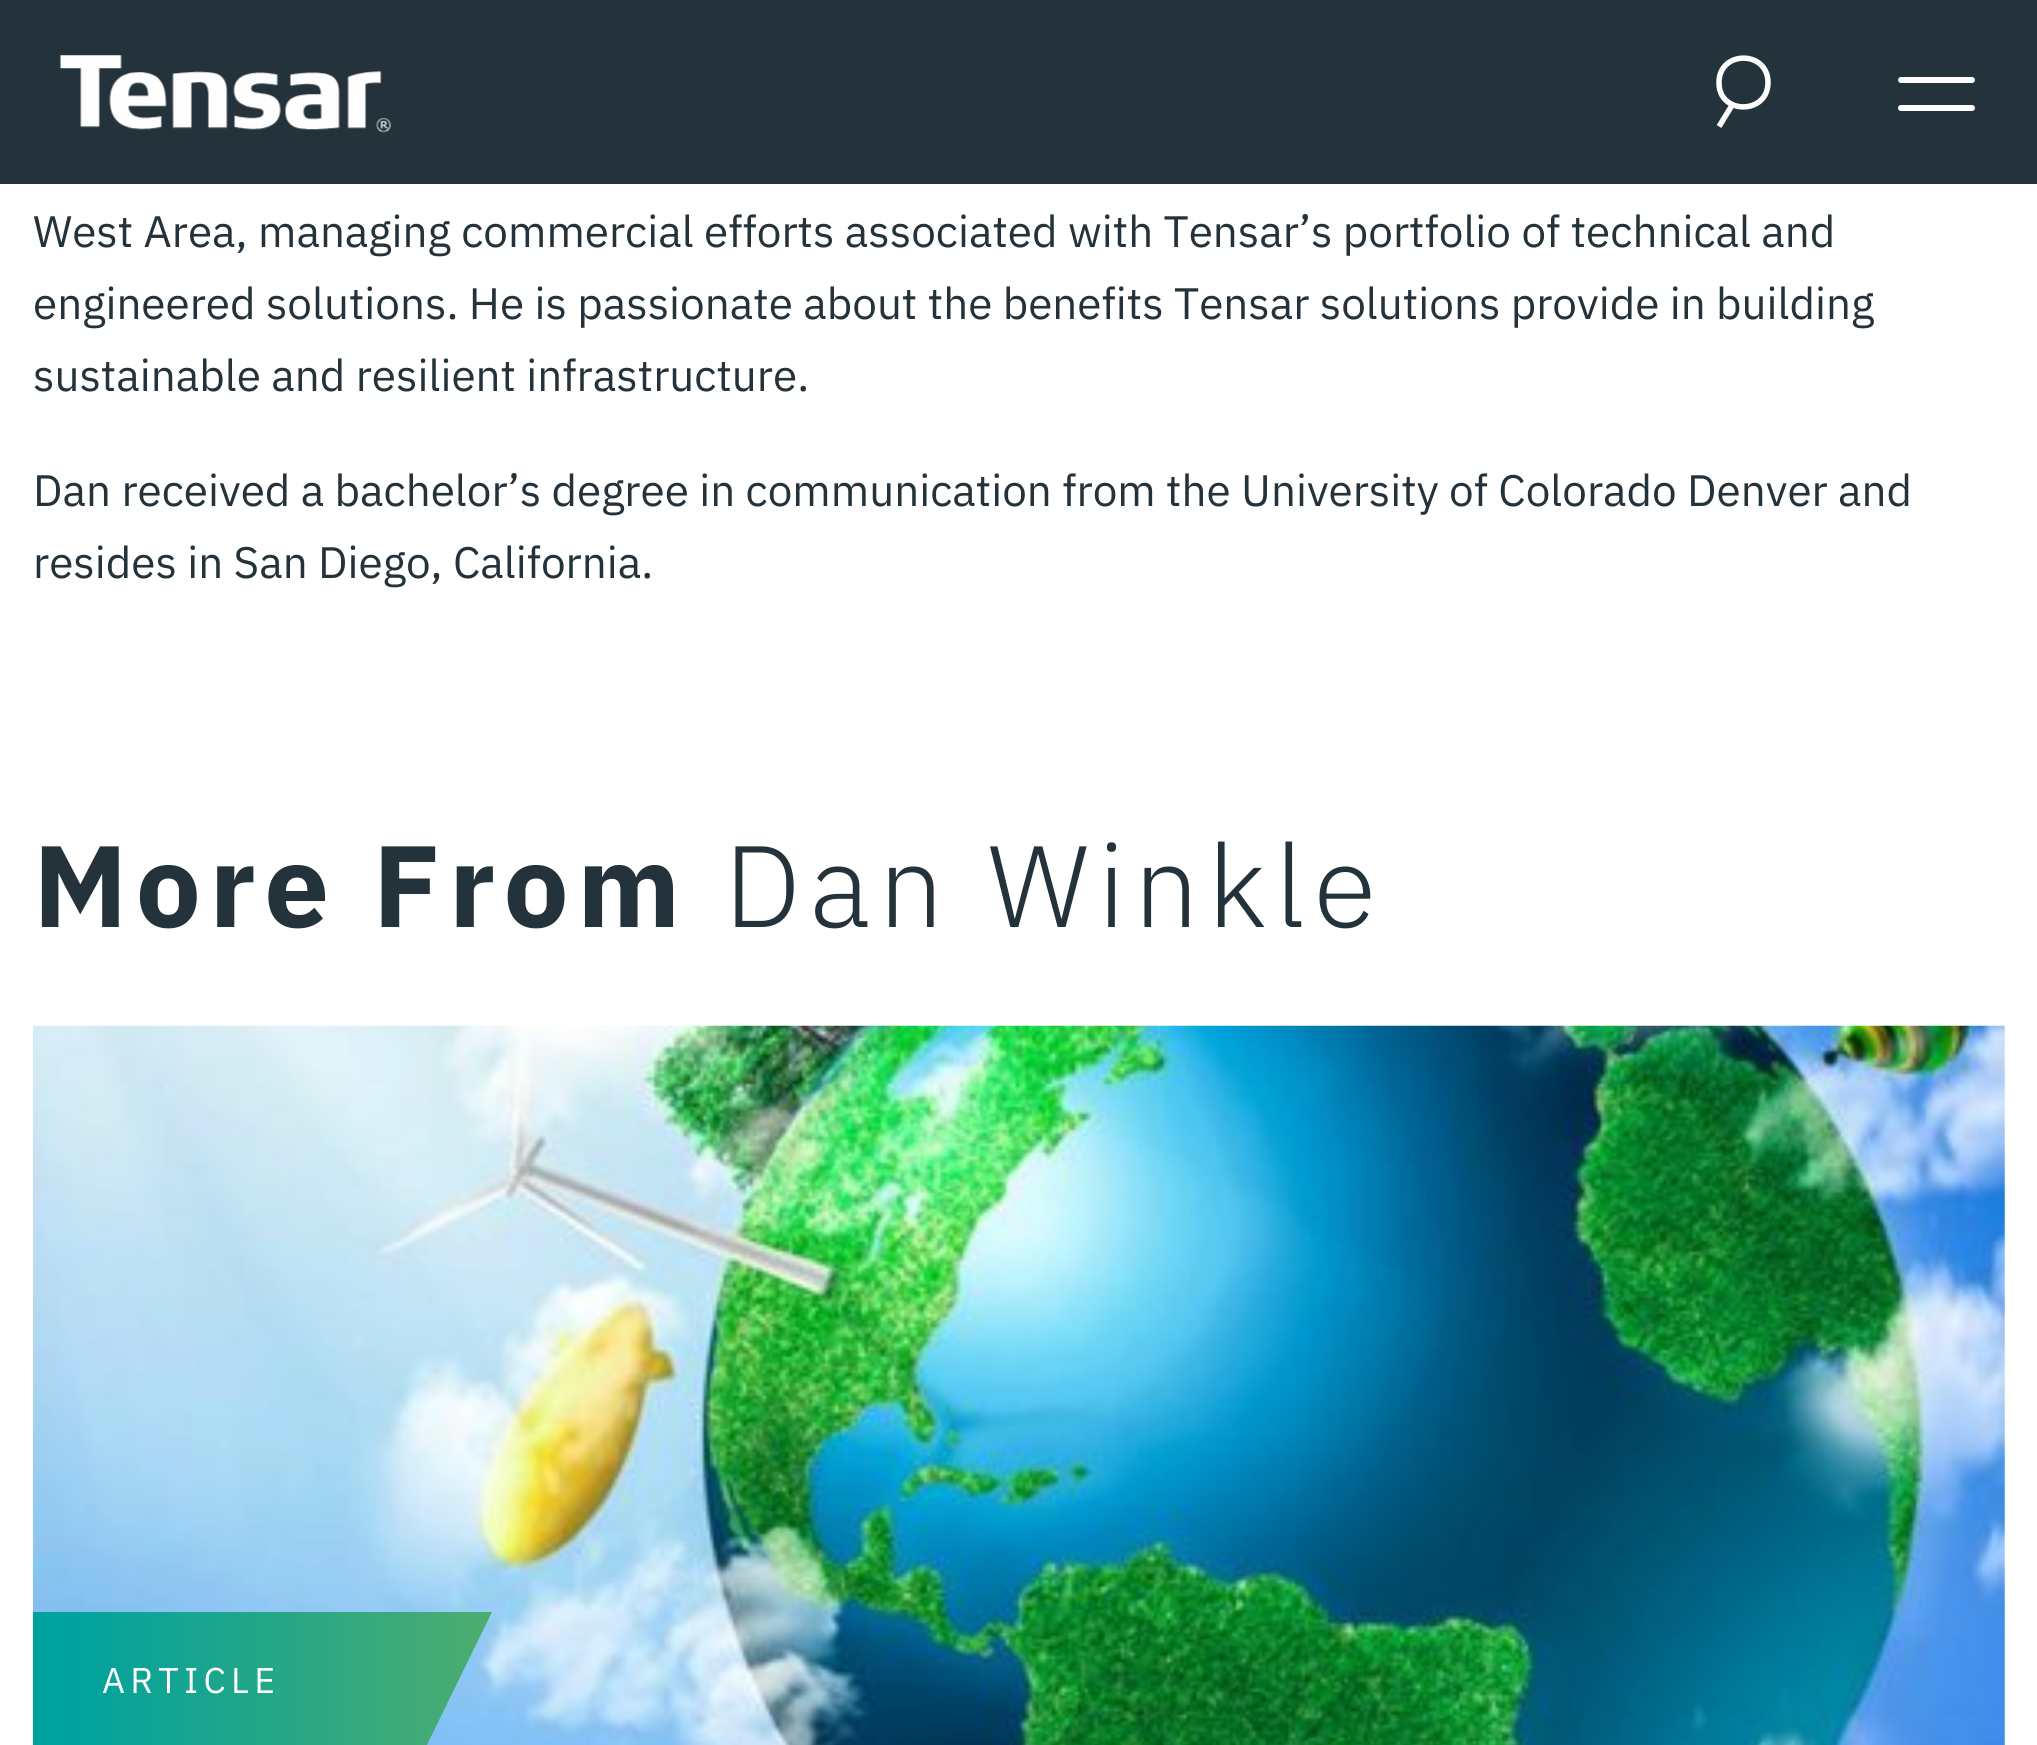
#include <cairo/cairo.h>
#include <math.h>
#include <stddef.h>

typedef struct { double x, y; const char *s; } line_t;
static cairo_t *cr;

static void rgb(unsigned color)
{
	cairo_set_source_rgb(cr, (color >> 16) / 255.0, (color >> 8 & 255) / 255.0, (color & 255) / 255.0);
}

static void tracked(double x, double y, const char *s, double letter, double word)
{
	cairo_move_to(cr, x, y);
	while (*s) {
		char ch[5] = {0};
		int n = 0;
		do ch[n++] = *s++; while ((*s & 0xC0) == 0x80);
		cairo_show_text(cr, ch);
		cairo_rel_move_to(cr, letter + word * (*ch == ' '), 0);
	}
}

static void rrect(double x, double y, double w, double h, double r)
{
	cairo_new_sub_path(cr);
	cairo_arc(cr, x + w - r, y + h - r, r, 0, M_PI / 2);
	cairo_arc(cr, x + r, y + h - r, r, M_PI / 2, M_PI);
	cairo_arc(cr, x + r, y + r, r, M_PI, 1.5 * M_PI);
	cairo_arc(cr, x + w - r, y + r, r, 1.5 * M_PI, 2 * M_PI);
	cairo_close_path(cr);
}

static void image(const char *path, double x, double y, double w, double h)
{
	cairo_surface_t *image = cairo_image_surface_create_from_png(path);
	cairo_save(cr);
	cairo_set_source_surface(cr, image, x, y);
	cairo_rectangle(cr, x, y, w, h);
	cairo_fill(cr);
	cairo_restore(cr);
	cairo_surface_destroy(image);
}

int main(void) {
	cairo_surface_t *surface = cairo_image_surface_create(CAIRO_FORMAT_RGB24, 2037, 1745);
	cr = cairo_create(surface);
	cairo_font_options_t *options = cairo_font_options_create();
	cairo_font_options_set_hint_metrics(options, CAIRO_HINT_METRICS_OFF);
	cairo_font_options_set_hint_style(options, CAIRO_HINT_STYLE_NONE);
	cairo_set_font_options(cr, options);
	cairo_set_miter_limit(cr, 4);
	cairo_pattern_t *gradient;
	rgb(0xffffff);
	cairo_paint(cr);
	rgb(0x24333b);
	cairo_rectangle(cr, 0, 0, 2037, 184);
	cairo_fill(cr);
	image("img/1.png", 60, 55, 331, 78);
	cairo_new_path(cr);
	cairo_move_to(cr, 1768, 82.5);
	cairo_curve_to(cr, 1768, 115, 1718.5, 115, 1719, 82.5);
	cairo_curve_to(cr, 1719, 50, 1768, 50, 1768, 82.5);
	cairo_close_path(cr);
	cairo_move_to(cr, 1719, 126.5);
	cairo_line_to(cr, 1732.5, 104.5);
	rgb(0xfefefe);
	cairo_set_line_width(cr, 5.5);
	cairo_stroke(cr);
	rgb(0xffffff);
	rrect(1898, 77, 77, 6, 3);
	cairo_fill(cr);
	rrect(1898, 105, 77, 6, 3);
	cairo_fill(cr);
	image("img/2.png", 33, 1025, 1972, 720);
	gradient = cairo_pattern_create_linear(27, 1683, 762, 1683);
	cairo_pattern_add_color_stop_rgba(gradient, 0.06, 0, 0.635, 0.62, 1);
	cairo_pattern_add_color_stop_rgba(gradient, 1, 0.498, 0.702, 0.314, 1);
	cairo_set_source(cr, gradient);
	cairo_pattern_destroy(gradient);
	cairo_new_path(cr);
	cairo_move_to(cr, 33, 1612);
	cairo_line_to(cr, 33, 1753);
	cairo_line_to(cr, 423, 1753);
	cairo_line_to(cr, 492, 1612);
	cairo_close_path(cr);
	cairo_fill(cr);
	cairo_select_font_face(cr, "IBM Plex Sans", CAIRO_FONT_SLANT_NORMAL, CAIRO_FONT_WEIGHT_NORMAL);
	cairo_set_font_size(cr, 44);
	rgb(0x23323b);
	{
		static const line_t items[] = {
			{33, 247, "West Area, managing commercial efforts associated with Tensar’s portfolio of technical and"},
			{33, 319, "engineered solutions. He is passionate about the benefits Tensar solutions provide in building"},
			{33, 391, "sustainable and resilient infrastructure."},
			{33, 506, "Dan received a bachelor’s degree in communication from the University of Colorado Denver and"},
			{33, 578, "resides in San Diego, California."},
		};
		for (size_t i = 0; i < sizeof items / sizeof *items; i++) {
			cairo_move_to(cr, items[i].x, items[i].y);
			cairo_show_text(cr, items[i].s);
		}
	}
	cairo_select_font_face(cr, "IBM Plex Sans", CAIRO_FONT_SLANT_NORMAL, CAIRO_FONT_WEIGHT_BOLD);
	cairo_set_font_size(cr, 115.5);
	tracked(33, 927, "More From", 8.25, 0);
	cairo_select_font_face(cr, "IBM Plex Sans Light", CAIRO_FONT_SLANT_NORMAL, CAIRO_FONT_WEIGHT_NORMAL);
	tracked(724, 927, "Dan Winkle", 8.25, 0);
	cairo_select_font_face(cr, "IBM Plex Sans", CAIRO_FONT_SLANT_NORMAL, CAIRO_FONT_WEIGHT_NORMAL);
	cairo_set_font_size(cr, 35.75);
	rgb(0xffffff);
	tracked(102, 1693, "ARTICLE", 5.25, 0);
	cairo_surface_write_to_png(surface, "page.png");
	cairo_font_options_destroy(options);
	cairo_destroy(cr);
	cairo_surface_destroy(surface);
	return 0;
}
